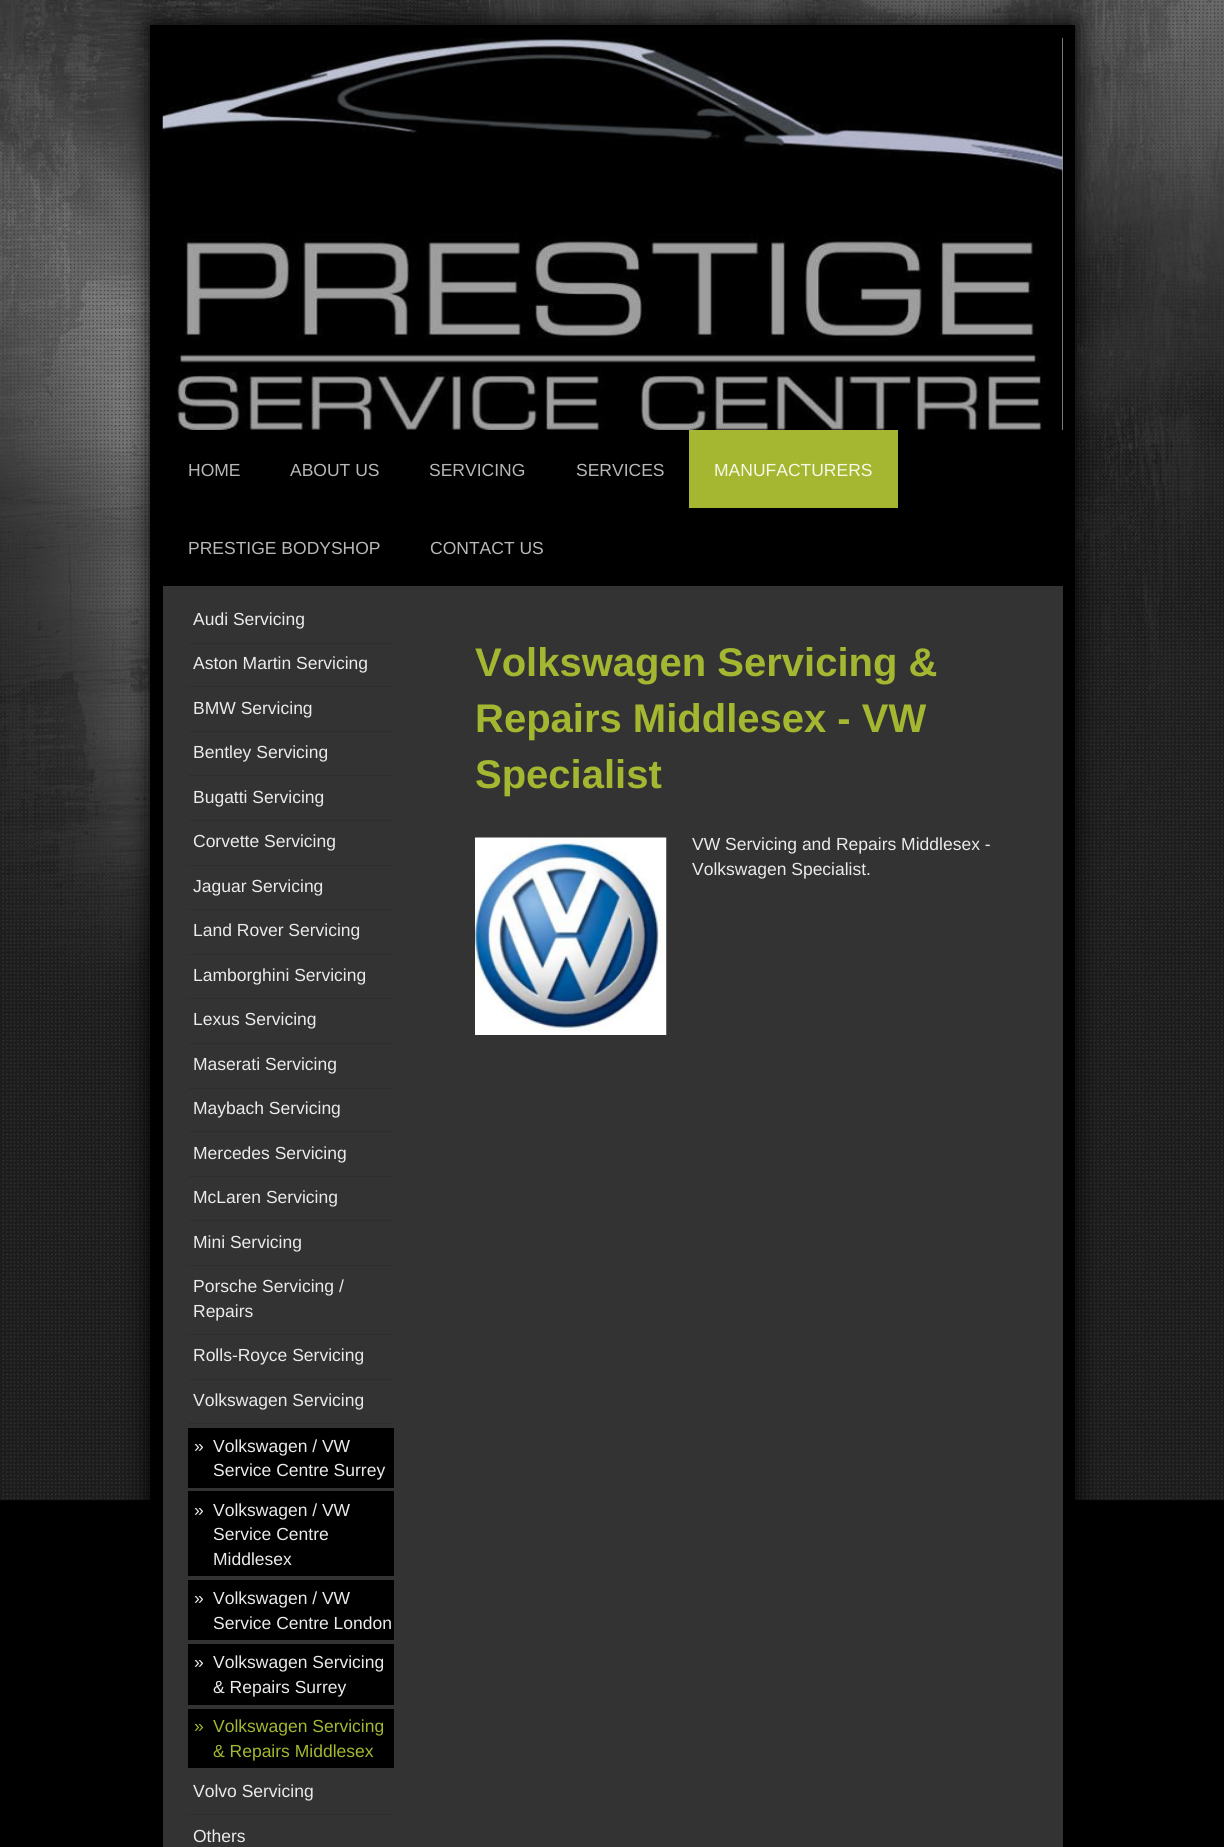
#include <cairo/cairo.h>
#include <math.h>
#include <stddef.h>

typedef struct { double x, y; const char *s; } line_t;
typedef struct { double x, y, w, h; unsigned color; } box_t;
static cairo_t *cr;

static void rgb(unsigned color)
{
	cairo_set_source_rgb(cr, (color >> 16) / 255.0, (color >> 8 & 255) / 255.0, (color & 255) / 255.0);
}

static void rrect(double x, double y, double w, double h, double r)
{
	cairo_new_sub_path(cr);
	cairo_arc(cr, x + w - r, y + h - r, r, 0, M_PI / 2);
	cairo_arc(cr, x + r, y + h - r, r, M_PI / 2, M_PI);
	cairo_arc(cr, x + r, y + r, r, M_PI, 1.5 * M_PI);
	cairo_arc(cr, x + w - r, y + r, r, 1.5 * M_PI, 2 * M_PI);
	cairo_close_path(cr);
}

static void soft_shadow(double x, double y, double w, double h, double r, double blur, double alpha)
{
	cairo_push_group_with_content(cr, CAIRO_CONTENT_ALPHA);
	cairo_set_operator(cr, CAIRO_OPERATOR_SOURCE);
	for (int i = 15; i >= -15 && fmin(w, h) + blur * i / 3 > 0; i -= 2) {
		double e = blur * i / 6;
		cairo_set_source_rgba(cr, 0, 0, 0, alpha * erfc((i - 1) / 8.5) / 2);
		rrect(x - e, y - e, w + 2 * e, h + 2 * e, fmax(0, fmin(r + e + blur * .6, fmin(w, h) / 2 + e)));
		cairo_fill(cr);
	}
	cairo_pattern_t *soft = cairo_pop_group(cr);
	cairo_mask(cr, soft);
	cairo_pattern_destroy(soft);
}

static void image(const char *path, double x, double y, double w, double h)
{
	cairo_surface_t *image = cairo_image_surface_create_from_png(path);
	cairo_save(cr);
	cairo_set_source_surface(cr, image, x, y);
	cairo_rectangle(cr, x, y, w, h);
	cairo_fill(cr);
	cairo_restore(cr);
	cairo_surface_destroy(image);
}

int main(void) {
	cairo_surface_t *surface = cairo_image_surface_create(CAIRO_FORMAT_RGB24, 1224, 1847);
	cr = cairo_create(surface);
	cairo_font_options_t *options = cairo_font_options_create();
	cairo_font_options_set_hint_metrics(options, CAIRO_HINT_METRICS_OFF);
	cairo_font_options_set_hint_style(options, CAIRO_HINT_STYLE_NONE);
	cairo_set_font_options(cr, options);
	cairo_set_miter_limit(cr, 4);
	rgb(0x000000);
	cairo_paint(cr);
	image("img/1.png", 0, 0, 1224, 1501);
	soft_shadow(150, 25, 925, 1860, 0, 12.5, 1);
	rgb(0x000000);
	cairo_rectangle(cr, 150, 25, 925, 1475);
	cairo_fill(cr);
	rgb(0xa0a0a0);
	cairo_rectangle(cr, 1062, 38, 1, 392);
	cairo_fill(cr);
	image("img/2.png", 162, 38, 901, 392);
	{
		static const box_t items[] = {
			{689, 430, 209, 78, 0xa5b730},
			{163, 586, 900, 1261, 0x333333},
			{188, 643, 206, 1, 0x2e2e2e},
			{188, 686, 206, 1, 0x2e2e2e},
			{188, 731, 206, 1, 0x2e2e2e},
			{188, 775, 206, 1, 0x2e2e2e},
			{188, 820, 206, 1, 0x2e2e2e},
			{188, 865, 206, 1, 0x2e2e2e},
			{188, 909, 206, 1, 0x2e2e2e},
			{188, 954, 206, 1, 0x2e2e2e},
			{188, 998, 206, 1, 0x2e2e2e},
			{188, 1043, 206, 1, 0x2e2e2e},
			{188, 1088, 206, 1, 0x2e2e2e},
			{188, 1131, 206, 1, 0x2e2e2e},
			{188, 1176, 206, 1, 0x2e2e2e},
			{188, 1220, 206, 1, 0x2e2e2e},
			{188, 1265, 206, 1, 0x2e2e2e},
			{188, 1334, 206, 1, 0x2e2e2e},
			{188, 1379, 206, 1, 0x2e2e2e},
			{188, 1423, 206, 1, 0x2e2e2e},
			{188, 1428, 206, 60, 0x000000},
			{188, 1491, 206, 85, 0x000000},
			{188, 1580, 206, 60, 0x000000},
			{188, 1644, 206, 61, 0x000000},
			{188, 1709, 206, 59, 0x000000},
			{188, 1814, 206, 1, 0x2e2e2e},
		};
		for (size_t i = 0; i < sizeof items / sizeof *items; i++) {
			rgb(items[i].color);
			cairo_rectangle(cr, items[i].x, items[i].y, items[i].w, items[i].h);
			cairo_fill(cr);
		}
	}
	image("img/3.png", 475, 837, 192, 198);
	cairo_select_font_face(cr, "Liberation Sans", CAIRO_FONT_SLANT_NORMAL, CAIRO_FONT_WEIGHT_NORMAL);
	cairo_set_font_size(cr, 17.5);
	rgb(0xb8b8b8);
	{
		static const line_t items[] = {
			{188, 476, "HOME"},
			{290, 476, "ABOUT US"},
			{429, 476, "SERVICING"},
			{576, 476, "SERVICES"},
		};
		for (size_t i = 0; i < sizeof items / sizeof *items; i++) {
			cairo_move_to(cr, items[i].x, items[i].y);
			cairo_show_text(cr, items[i].s);
		}
	}
	rgb(0xf6f8ea);
	cairo_move_to(cr, 714, 476);
	cairo_show_text(cr, "MANUFACTURERS");
	rgb(0xb8b8b8);
	cairo_move_to(cr, 188, 554);
	cairo_show_text(cr, "PRESTIGE BODYSHOP");
	cairo_move_to(cr, 430, 554);
	cairo_show_text(cr, "CONTACT US");
	rgb(0xebebeb);
	{
		static const line_t items[] = {
			{193, 625, "Audi Servicing"},
			{193, 669, "Aston Martin Servicing"},
			{193, 714, "BMW Servicing"},
			{193, 758, "Bentley Servicing"},
			{193, 803, "Bugatti Servicing"},
			{193, 847, "Corvette Servicing"},
			{193, 892, "Jaguar Servicing"},
			{193, 936, "Land Rover Servicing"},
			{193, 981, "Lamborghini Servicing"},
			{193, 1025, "Lexus Servicing"},
			{193, 1070, "Maserati Servicing"},
			{193, 1114, "Maybach Servicing"},
			{193, 1159, "Mercedes Servicing"},
			{193, 1203, "McLaren Servicing"},
			{193, 1248, "Mini Servicing"},
			{193, 1292, "Porsche Servicing /"},
			{193, 1317, "Repairs"},
			{193, 1361, "Rolls-Royce Servicing"},
			{193, 1406, "Volkswagen Servicing"},
			{194, 1452, "»"},
			{213, 1452, "Volkswagen / VW"},
			{213, 1476, "Service Centre Surrey"},
			{194, 1516, "»"},
			{213, 1516, "Volkswagen / VW"},
			{213, 1540, "Service Centre"},
			{213, 1565, "Middlesex"},
			{194, 1604, "»"},
			{213, 1604, "Volkswagen / VW"},
			{213, 1629, "Service Centre London"},
			{194, 1668, "»"},
			{213, 1668, "Volkswagen Servicing"},
			{213, 1693, "& Repairs Surrey"},
		};
		for (size_t i = 0; i < sizeof items / sizeof *items; i++) {
			cairo_move_to(cr, items[i].x, items[i].y);
			cairo_show_text(cr, items[i].s);
		}
	}
	rgb(0xa5b730);
	{
		static const line_t items[] = {
			{194, 1732, "»"},
			{213, 1732, "Volkswagen Servicing"},
			{213, 1757, "& Repairs Middlesex"},
		};
		for (size_t i = 0; i < sizeof items / sizeof *items; i++) {
			cairo_move_to(cr, items[i].x, items[i].y);
			cairo_show_text(cr, items[i].s);
		}
	}
	rgb(0xebebeb);
	cairo_move_to(cr, 193, 1797);
	cairo_show_text(cr, "Volvo Servicing");
	cairo_move_to(cr, 193, 1842);
	cairo_show_text(cr, "Others");
	cairo_select_font_face(cr, "Liberation Sans", CAIRO_FONT_SLANT_NORMAL, CAIRO_FONT_WEIGHT_BOLD);
	cairo_set_font_size(cr, 40);
	rgb(0xa5b730);
	{
		static const line_t items[] = {
			{475, 676, "Volkswagen Servicing &"},
			{475, 732, "Repairs Middlesex - VW"},
			{475, 788, "Specialist"},
		};
		for (size_t i = 0; i < sizeof items / sizeof *items; i++) {
			cairo_move_to(cr, items[i].x, items[i].y);
			cairo_show_text(cr, items[i].s);
		}
	}
	cairo_select_font_face(cr, "Liberation Sans", CAIRO_FONT_SLANT_NORMAL, CAIRO_FONT_WEIGHT_NORMAL);
	cairo_set_font_size(cr, 17.5);
	rgb(0xebebeb);
	cairo_move_to(cr, 692, 850);
	cairo_show_text(cr, "VW Servicing and Repairs Middlesex -");
	cairo_move_to(cr, 692, 875);
	cairo_show_text(cr, "Volkswagen Specialist.");
	cairo_surface_write_to_png(surface, "page.png");
	cairo_font_options_destroy(options);
	cairo_destroy(cr);
	cairo_surface_destroy(surface);
	return 0;
}
